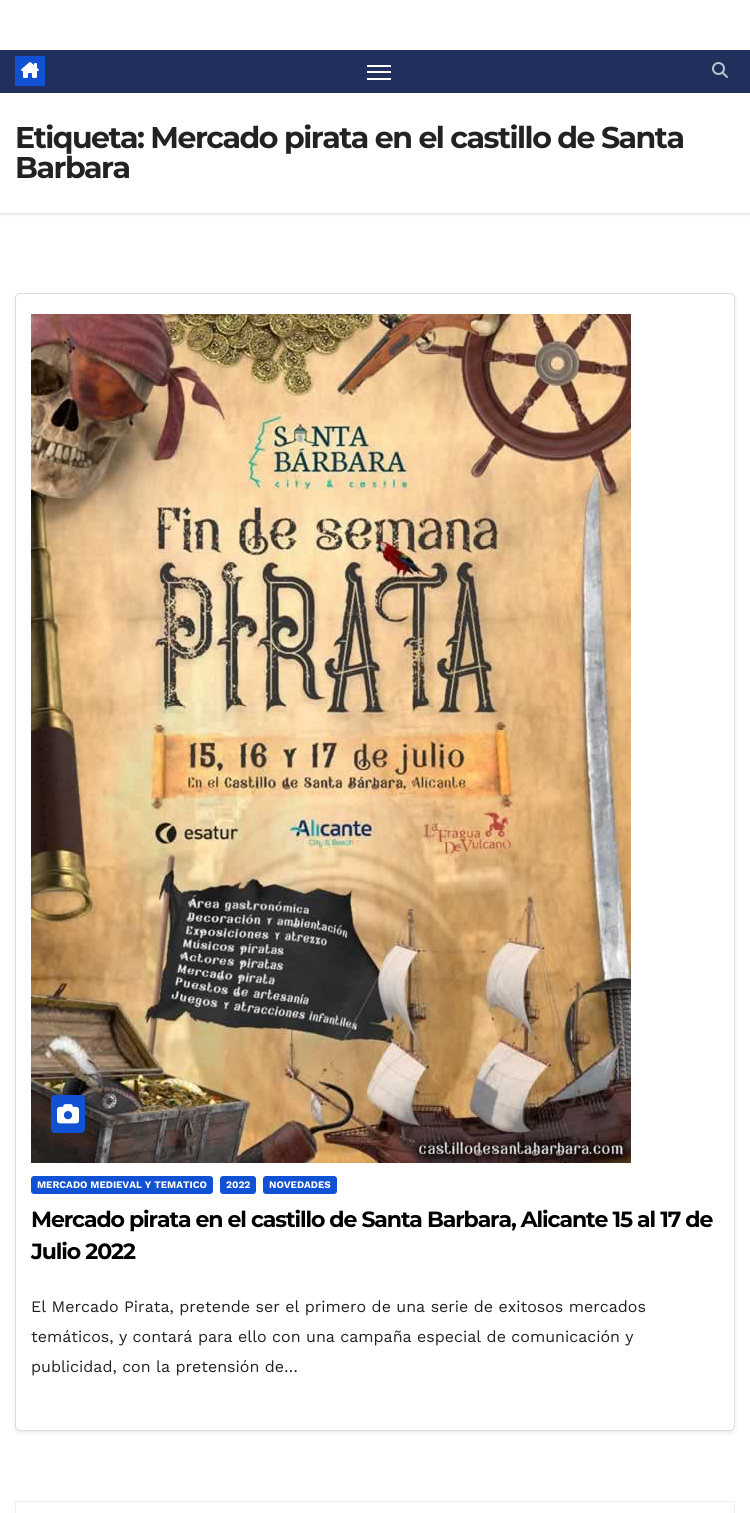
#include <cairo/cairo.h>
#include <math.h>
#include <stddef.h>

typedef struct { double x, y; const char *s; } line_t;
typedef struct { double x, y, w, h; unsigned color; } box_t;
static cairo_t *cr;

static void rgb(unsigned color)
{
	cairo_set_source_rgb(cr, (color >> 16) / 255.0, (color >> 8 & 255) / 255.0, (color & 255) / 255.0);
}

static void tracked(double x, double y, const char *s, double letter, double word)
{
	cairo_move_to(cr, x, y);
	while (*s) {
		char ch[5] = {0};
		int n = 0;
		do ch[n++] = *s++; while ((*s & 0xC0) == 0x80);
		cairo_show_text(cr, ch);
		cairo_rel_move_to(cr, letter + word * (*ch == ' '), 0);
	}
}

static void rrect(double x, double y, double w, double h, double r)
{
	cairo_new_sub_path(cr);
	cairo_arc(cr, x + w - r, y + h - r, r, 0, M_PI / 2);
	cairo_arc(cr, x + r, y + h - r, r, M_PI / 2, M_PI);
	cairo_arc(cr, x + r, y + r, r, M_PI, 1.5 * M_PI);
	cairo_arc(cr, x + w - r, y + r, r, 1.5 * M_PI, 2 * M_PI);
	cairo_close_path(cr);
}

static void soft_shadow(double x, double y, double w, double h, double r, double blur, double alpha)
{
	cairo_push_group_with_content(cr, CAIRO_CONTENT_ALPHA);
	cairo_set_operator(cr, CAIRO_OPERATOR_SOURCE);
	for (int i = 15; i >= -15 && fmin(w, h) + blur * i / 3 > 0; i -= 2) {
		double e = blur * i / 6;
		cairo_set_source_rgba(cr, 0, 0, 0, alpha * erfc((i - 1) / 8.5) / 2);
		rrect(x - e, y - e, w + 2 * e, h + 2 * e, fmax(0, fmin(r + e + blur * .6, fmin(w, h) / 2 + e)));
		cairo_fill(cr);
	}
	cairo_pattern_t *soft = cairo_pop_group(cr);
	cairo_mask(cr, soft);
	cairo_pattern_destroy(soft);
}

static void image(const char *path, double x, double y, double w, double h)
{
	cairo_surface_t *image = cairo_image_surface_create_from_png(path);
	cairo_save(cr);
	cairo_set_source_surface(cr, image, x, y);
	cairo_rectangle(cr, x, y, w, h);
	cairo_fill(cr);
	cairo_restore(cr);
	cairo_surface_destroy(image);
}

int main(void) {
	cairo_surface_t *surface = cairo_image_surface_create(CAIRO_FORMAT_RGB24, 750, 1513);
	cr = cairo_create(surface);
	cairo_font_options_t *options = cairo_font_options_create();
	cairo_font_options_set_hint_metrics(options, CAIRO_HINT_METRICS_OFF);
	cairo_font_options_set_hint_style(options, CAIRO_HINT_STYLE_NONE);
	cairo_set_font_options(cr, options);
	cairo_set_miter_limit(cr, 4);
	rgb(0xffffff);
	cairo_paint(cr);
	rgb(0x000000);
	soft_shadow(0, 94, 750, 120, 0, 1.5, 0.15);
	rgb(0x202f5b);
	cairo_rectangle(cr, 0, 50, 750, 43);
	cairo_fill(cr);
	rgb(0x1151d3);
	cairo_rectangle(cr, 15, 56, 30, 30);
	cairo_fill(cr);
	image("img/1.png", 21, 62, 18, 16);
	{
		static const box_t items[] = {
			{367, 65, 24, 2, 0xffffff},
			{367, 71, 24, 2, 0xffffff},
			{367, 78, 24, 2, 0xffffff},
		};
		for (size_t i = 0; i < sizeof items / sizeof *items; i++) {
			rgb(items[i].color);
			cairo_rectangle(cr, items[i].x, items[i].y, items[i].w, items[i].h);
			cairo_fill(cr);
		}
	}
	image("img/2.png", 712, 62, 16, 16);
	cairo_rectangle(cr, 0, 93, 750, 120);
	cairo_fill(cr);
	rgb(0x000000);
	soft_shadow(15, 295, 720, 1138, 5, 2, 0.08);
	rgb(0xffffff);
	rrect(15.5, 293.5, 719, 1137, 4.5);
	cairo_fill_preserve(cr);
	rgb(0xdddcdc);
	cairo_set_line_width(cr, 1);
	cairo_stroke(cr);
	image("img/3.png", 31, 314, 600, 849);
	rgb(0x1151d3);
	rrect(51, 1095, 34, 38, 4);
	cairo_fill(cr);
	image("img/4.png", 57, 1104, 22, 20);
	rrect(31, 1176, 182, 18, 3);
	cairo_fill(cr);
	rrect(220, 1176, 36, 18, 3);
	cairo_fill(cr);
	rrect(263, 1176, 74, 18, 3);
	cairo_fill(cr);
	cairo_rectangle(cr, 15.5, 1501.5, 719, 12);
	rgb(0xeeeeee);
	cairo_stroke(cr);
	cairo_select_font_face(cr, "Montserrat", CAIRO_FONT_SLANT_NORMAL, CAIRO_FONT_WEIGHT_BOLD);
	cairo_set_font_size(cr, 30);
	rgb(0x222222);
	tracked(15, 148, "Etiqueta: Mercado pirata en el castillo de Santa", -1.5, 0);
	tracked(15, 178, "Barbara", -1.5, 0);
	cairo_select_font_face(cr, "Work Sans", CAIRO_FONT_SLANT_NORMAL, CAIRO_FONT_WEIGHT_BOLD);
	cairo_set_font_size(cr, 10);
	rgb(0xffffff);
	{
		static const line_t items[] = {
			{37, 1188, "MERCADO MEDIEVAL Y TEMATICO"},
			{226, 1188, "2022"},
			{269, 1188, "NOVEDADES"},
		};
		for (size_t i = 0; i < sizeof items / sizeof *items; i++) {
			cairo_move_to(cr, items[i].x, items[i].y);
			cairo_show_text(cr, items[i].s);
		}
	}
	cairo_select_font_face(cr, "Montserrat", CAIRO_FONT_SLANT_NORMAL, CAIRO_FONT_WEIGHT_BOLD);
	cairo_set_font_size(cr, 22);
	rgb(0x000000);
	tracked(31, 1227, "Mercado pirata en el castillo de Santa Barbara, Alicante 15 al 17 de", -1.1, 0);
	tracked(31, 1259, "Julio 2022", -1.1, 0);
	cairo_select_font_face(cr, "Work Sans", CAIRO_FONT_SLANT_NORMAL, CAIRO_FONT_WEIGHT_NORMAL);
	cairo_set_font_size(cr, 16);
	rgb(0x222222);
	{
		static const line_t items[] = {
			{31, 1312, "El Mercado Pirata, pretende ser el primero de una serie de exitosos mercados"},
			{31, 1342, "temáticos, y contará para ello con una campaña especial de comunicación y"},
			{31, 1372, "publicidad, con la pretensión de…"},
		};
		for (size_t i = 0; i < sizeof items / sizeof *items; i++) {
			cairo_move_to(cr, items[i].x, items[i].y);
			cairo_show_text(cr, items[i].s);
		}
	}
	cairo_surface_write_to_png(surface, "page.png");
	cairo_font_options_destroy(options);
	cairo_destroy(cr);
	cairo_surface_destroy(surface);
	return 0;
}
